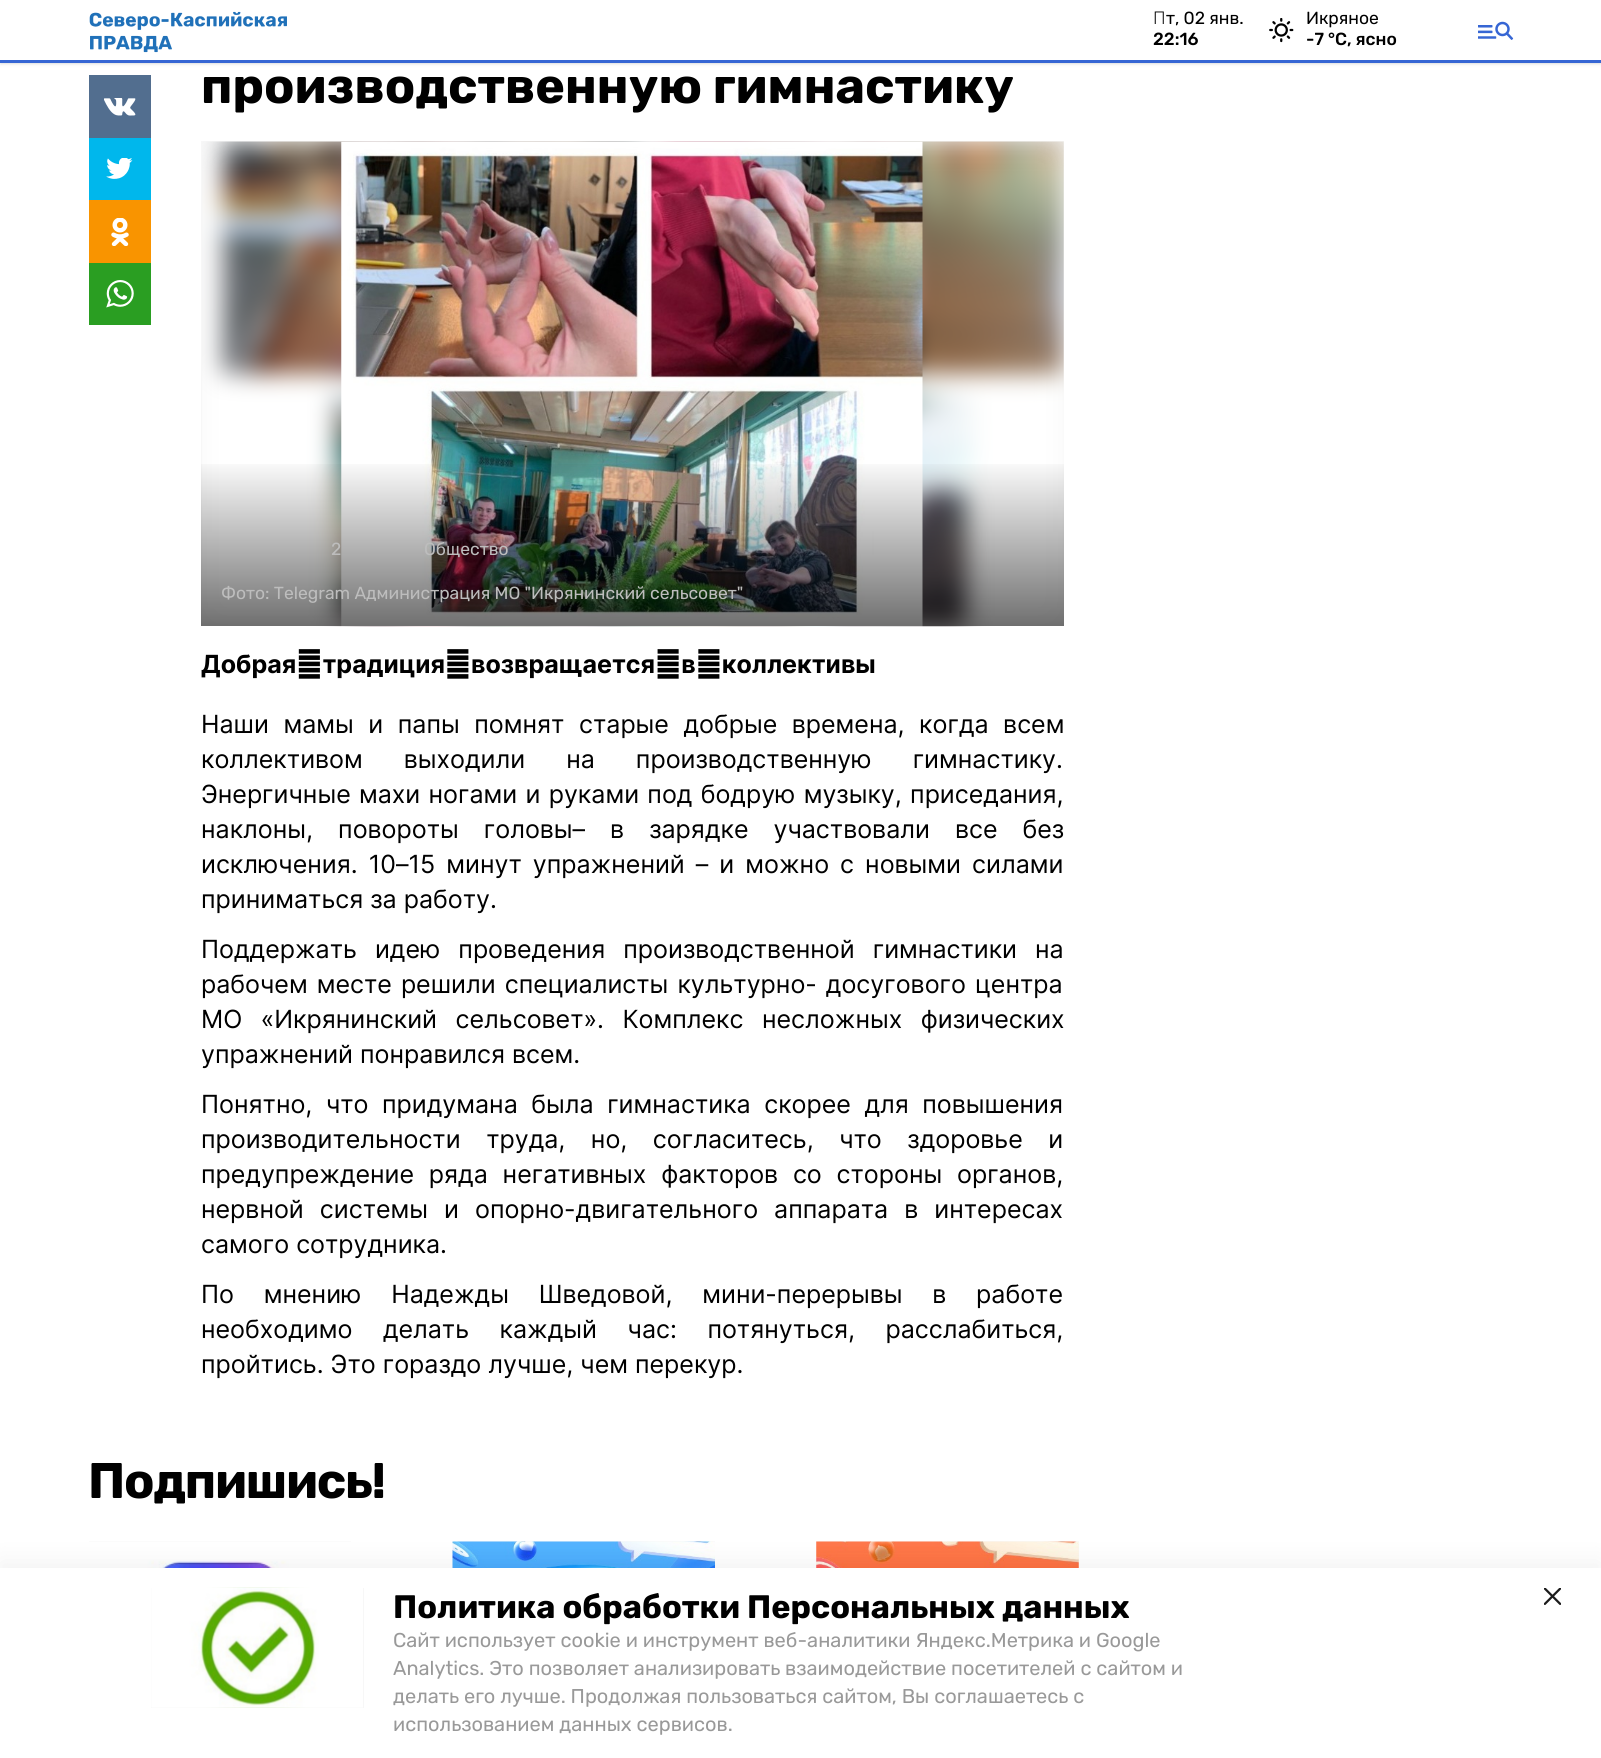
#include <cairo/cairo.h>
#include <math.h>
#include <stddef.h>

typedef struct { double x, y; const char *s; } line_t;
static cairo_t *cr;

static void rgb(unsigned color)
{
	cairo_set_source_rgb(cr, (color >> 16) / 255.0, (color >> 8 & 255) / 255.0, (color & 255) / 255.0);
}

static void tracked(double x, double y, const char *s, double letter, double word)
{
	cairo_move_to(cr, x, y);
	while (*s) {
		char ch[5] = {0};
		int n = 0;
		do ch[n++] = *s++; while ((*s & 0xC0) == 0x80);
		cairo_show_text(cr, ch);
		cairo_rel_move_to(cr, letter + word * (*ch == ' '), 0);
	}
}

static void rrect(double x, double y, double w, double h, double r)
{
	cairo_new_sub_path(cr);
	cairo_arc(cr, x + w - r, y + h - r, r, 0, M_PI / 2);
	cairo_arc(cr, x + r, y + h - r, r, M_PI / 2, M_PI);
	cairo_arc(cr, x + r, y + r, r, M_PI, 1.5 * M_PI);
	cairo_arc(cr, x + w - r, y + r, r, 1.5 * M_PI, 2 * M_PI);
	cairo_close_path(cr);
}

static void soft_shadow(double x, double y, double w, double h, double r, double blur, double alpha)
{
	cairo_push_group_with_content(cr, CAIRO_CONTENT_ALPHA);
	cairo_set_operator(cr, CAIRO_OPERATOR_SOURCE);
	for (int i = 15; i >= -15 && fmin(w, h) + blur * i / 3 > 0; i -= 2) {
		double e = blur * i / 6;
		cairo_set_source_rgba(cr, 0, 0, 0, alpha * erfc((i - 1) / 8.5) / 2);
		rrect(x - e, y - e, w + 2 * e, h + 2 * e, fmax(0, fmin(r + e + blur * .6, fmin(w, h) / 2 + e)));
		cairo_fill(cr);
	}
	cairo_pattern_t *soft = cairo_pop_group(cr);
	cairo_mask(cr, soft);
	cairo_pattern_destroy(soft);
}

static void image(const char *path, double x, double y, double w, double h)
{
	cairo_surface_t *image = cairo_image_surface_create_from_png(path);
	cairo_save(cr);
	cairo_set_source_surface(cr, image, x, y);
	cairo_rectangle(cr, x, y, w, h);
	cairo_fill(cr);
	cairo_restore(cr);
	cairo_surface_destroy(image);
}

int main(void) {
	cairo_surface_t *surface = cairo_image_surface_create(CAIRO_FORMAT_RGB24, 1601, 1758);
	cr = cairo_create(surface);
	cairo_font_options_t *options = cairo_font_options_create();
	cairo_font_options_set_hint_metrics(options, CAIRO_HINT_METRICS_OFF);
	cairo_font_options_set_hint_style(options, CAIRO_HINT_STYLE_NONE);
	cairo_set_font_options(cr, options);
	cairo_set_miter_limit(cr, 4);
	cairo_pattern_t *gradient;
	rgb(0xffffff);
	cairo_paint(cr);
	rgb(0x000000);
	soft_shadow(1, 3, 1599, 60, 0, 1, 0.1);
	soft_shadow(0, 1, 1601, 63, 0, 2, 0.1);
	rgb(0xffffff);
	cairo_rectangle(cr, 0, 0, 1601, 60);
	cairo_fill(cr);
	rgb(0x3666d4);
	cairo_rectangle(cr, 0, 60, 1601, 3);
	cairo_fill(cr);
	image("img/1.png", 89, 11, 198, 42);
	image("img/2.png", 1269, 18, 25, 25);
	image("img/3.png", 1478, 21, 36, 19);
	rgb(0x526e8f);
	cairo_rectangle(cr, 89, 75, 62, 63);
	cairo_fill(cr);
	image("img/4.png", 104, 98, 32, 18);
	rgb(0x00b7ec);
	cairo_rectangle(cr, 89, 138, 62, 62);
	cairo_fill(cr);
	image("img/5.png", 106, 158, 27, 21);
	rgb(0xf99400);
	cairo_rectangle(cr, 89, 200, 62, 63);
	cairo_fill(cr);
	image("img/6.png", 111, 218, 18, 28);
	rgb(0x2a9e22);
	cairo_rectangle(cr, 89, 263, 62, 62);
	cairo_fill(cr);
	image("img/7.png", 106, 280, 28, 28);
	rgb(0xf7f7f7);
	cairo_rectangle(cr, 201, 141, 863, 485);
	cairo_fill(cr);
	image("img/8.png", 202, 141, 862, 486);
	image("img/9.png", 341, 141, 582, 486);
	gradient = cairo_pattern_create_linear(633, 457, 633, 626);
	cairo_pattern_add_color_stop_rgba(gradient, 0, 0, 0, 0, 0);
	cairo_pattern_add_color_stop_rgba(gradient, 1, 0, 0, 0, 0.56);
	cairo_set_source(cr, gradient);
	cairo_pattern_destroy(gradient);
	cairo_rectangle(cr, 201, 464, 863, 162);
	cairo_fill(cr);
	rgb(0xf7f7f7);
	cairo_rectangle(cr, 89, 1541, 262, 1);
	cairo_fill(cr);
	image("img/10.png", 89, 1541, 262, 27);
	cairo_rectangle(cr, 453, 1541, 262, 1);
	cairo_fill(cr);
	image("img/11.png", 452, 1541, 263, 27);
	cairo_rectangle(cr, 816, 1541, 263, 27);
	cairo_fill(cr);
	image("img/12.png", 816, 1541, 263, 27);
	rgb(0x000000);
	soft_shadow(0, 1561, 1601, 192, 0, 12.5, 0.05);
	rgb(0xffffff);
	cairo_rectangle(cr, 0, 1568, 1601, 190);
	cairo_fill(cr);
	rgb(0xf7f7f7);
	cairo_rectangle(cr, 151, 1588, 213, 120);
	cairo_fill(cr);
	image("img/14.png", 152, 1587, 211, 121);
	image("img/13.png", 151, 1587, 212, 121);
	image("img/15.png", 1544, 1588, 17, 17);
	cairo_select_font_face(cr, "Noto Sans Light", CAIRO_FONT_SLANT_NORMAL, CAIRO_FONT_WEIGHT_NORMAL);
	cairo_set_font_size(cr, 17.5);
	rgb(0x000000);
	cairo_move_to(cr, 1153, 24);
	cairo_show_text(cr, "П");
	cairo_select_font_face(cr, "Rubik", CAIRO_FONT_SLANT_NORMAL, CAIRO_FONT_WEIGHT_NORMAL);
	cairo_move_to(cr, 1166, 24);
	cairo_show_text(cr, "т, 02 янв.");
	cairo_select_font_face(cr, "Rubik Medium", CAIRO_FONT_SLANT_NORMAL, CAIRO_FONT_WEIGHT_NORMAL);
	cairo_move_to(cr, 1153, 45);
	cairo_show_text(cr, "22:16");
	cairo_select_font_face(cr, "Rubik", CAIRO_FONT_SLANT_NORMAL, CAIRO_FONT_WEIGHT_NORMAL);
	cairo_move_to(cr, 1306, 24);
	cairo_show_text(cr, "Икряное");
	cairo_select_font_face(cr, "Rubik Medium", CAIRO_FONT_SLANT_NORMAL, CAIRO_FONT_WEIGHT_NORMAL);
	cairo_move_to(cr, 1306, 45);
	cairo_show_text(cr, "-7 °С, ясно");
	cairo_select_font_face(cr, "Rubik", CAIRO_FONT_SLANT_NORMAL, CAIRO_FONT_WEIGHT_BOLD);
	cairo_set_font_size(cr, 50);
	cairo_move_to(cr, 201, 103);
	cairo_show_text(cr, "производственную гимнастику");
	cairo_select_font_face(cr, "Rubik", CAIRO_FONT_SLANT_NORMAL, CAIRO_FONT_WEIGHT_NORMAL);
	cairo_set_font_size(cr, 17.5);
	rgb(0xbdbdbd);
	{
		static const line_t items[] = {
			{331, 555, "2"},
			{424, 555, "Общество"},
			{221, 599, "Фото: Telegram Администрация МО \"Икрянинский сельсовет\""},
		};
		for (size_t i = 0; i < sizeof items / sizeof *items; i++) {
			cairo_move_to(cr, items[i].x, items[i].y);
			cairo_show_text(cr, items[i].s);
		}
	}
	cairo_select_font_face(cr, "Inter", CAIRO_FONT_SLANT_NORMAL, CAIRO_FONT_WEIGHT_BOLD);
	cairo_set_font_size(cr, 25);
	rgb(0x000000);
	cairo_move_to(cr, 201, 673);
	cairo_show_text(cr, "Добрая традиция возвращается в коллективы");
	cairo_select_font_face(cr, "Inter", CAIRO_FONT_SLANT_NORMAL, CAIRO_FONT_WEIGHT_NORMAL);
	tracked(201, 733, "Наши мамы и папы помнят старые добрые времена, когда всем", 0, 7.5);
	tracked(201, 768, "коллективом выходили на производственную гимнастику.", 0, 34);
	tracked(201, 803, "Энергичные махи ногами и руками под бодрую музыку, приседания,", 0, 1.25);
	tracked(201, 838, "наклоны, повороты головы– в зарядке участвовали все без", 0, 18);
	tracked(201, 873, "исключения. 10–15 минут упражнений – и можно с новыми силами", 0, 4);
	cairo_move_to(cr, 201, 908);
	cairo_show_text(cr, "приниматься за работу.");
	tracked(201, 958, "Поддержать идею проведения производственной гимнастики на", 0, 11);
	tracked(201, 993, "рабочем месте решили специалисты культурно- досугового центра", 0, 2);
	tracked(201, 1028, "МО «Икрянинский сельсовет». Комплекс несложных физических", 0, 11.5);
	cairo_move_to(cr, 201, 1063);
	cairo_show_text(cr, "упражнений понравился всем.");
	tracked(201, 1113, "Понятно, что придумана была гимнастика скорее для повышения", 0, 6.5);
	tracked(201, 1148, "производительности труда, но, согласитесь, что здоровье и", 0, 18.5);
	tracked(201, 1183, "предупреждение ряда негативных факторов со стороны органов,", 0, 7.75);
	tracked(201, 1218, "нервной системы и опорно-двигательного аппарата в интересах", 0, 9);
	cairo_move_to(cr, 201, 1253);
	cairo_show_text(cr, "самого сотрудника.");
	tracked(201, 1303, "По мнению Надежды Шведовой, мини-перерывы в работе", 0, 22.75);
	tracked(201, 1338, "необходимо делать каждый час: потянуться, расслабиться,", 0, 23.5);
	cairo_move_to(cr, 201, 1373);
	cairo_show_text(cr, "пройтись. Это гораздо лучше, чем перекур.");
	cairo_select_font_face(cr, "Rubik", CAIRO_FONT_SLANT_NORMAL, CAIRO_FONT_WEIGHT_BOLD);
	cairo_set_font_size(cr, 50);
	tracked(88, 1498, "Подпишись!", -1.25, 0);
	cairo_set_font_size(cr, 32.5);
	cairo_move_to(cr, 393, 1618);
	cairo_show_text(cr, "Политика обработки Персональных данных");
	cairo_select_font_face(cr, "Rubik", CAIRO_FONT_SLANT_NORMAL, CAIRO_FONT_WEIGHT_NORMAL);
	cairo_set_font_size(cr, 20);
	rgb(0x999999);
	{
		static const line_t items[] = {
			{393, 1647, "Сайт использует cookie и инструмент веб-аналитики Яндекс.Метрика и Google"},
			{393, 1675, "Analytics. Это позволяет анализировать взаимодействие посетителей с сайтом и"},
			{393, 1703, "делать его лучше. Продолжая пользоваться сайтом, Вы соглашаетесь с"},
			{393, 1731, "использованием данных сервисов."},
		};
		for (size_t i = 0; i < sizeof items / sizeof *items; i++) {
			cairo_move_to(cr, items[i].x, items[i].y);
			cairo_show_text(cr, items[i].s);
		}
	}
	cairo_surface_write_to_png(surface, "page.png");
	cairo_font_options_destroy(options);
	cairo_destroy(cr);
	cairo_surface_destroy(surface);
	return 0;
}
